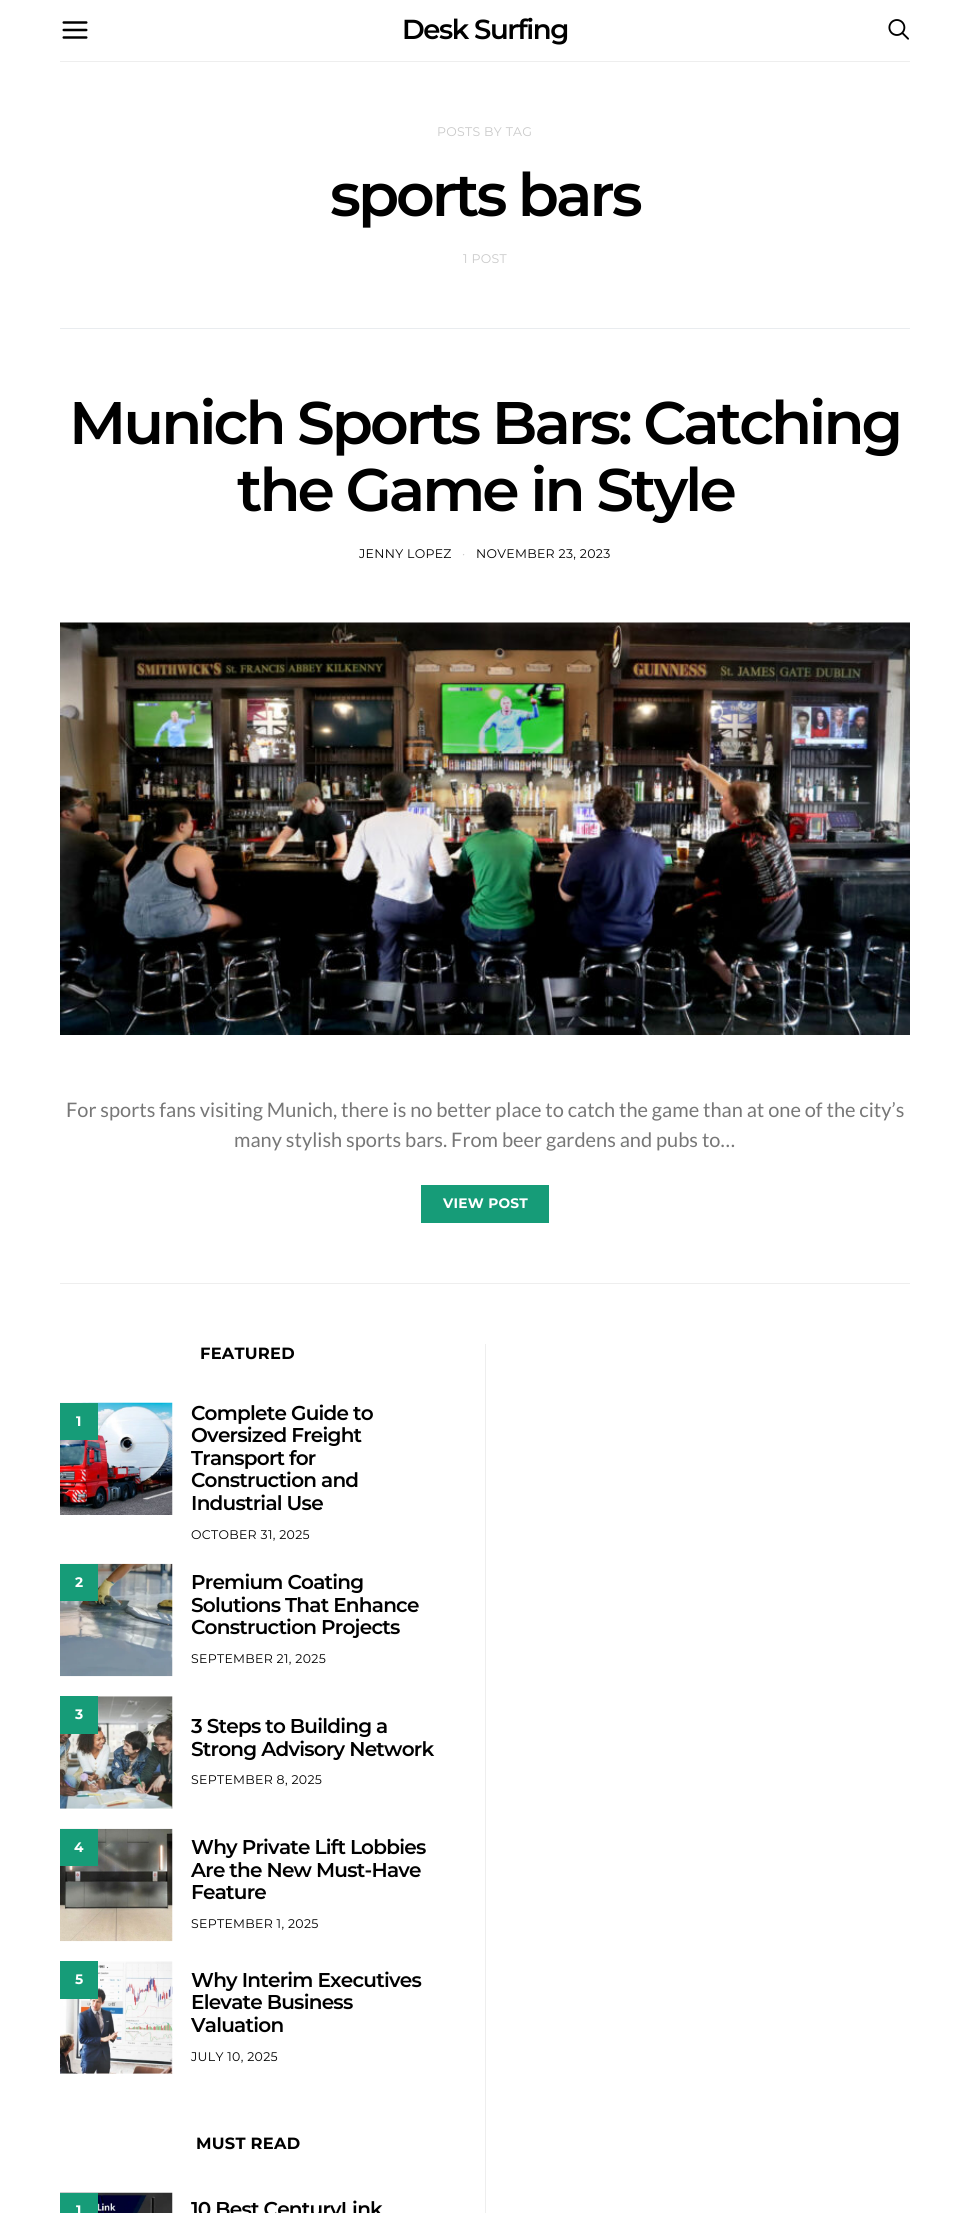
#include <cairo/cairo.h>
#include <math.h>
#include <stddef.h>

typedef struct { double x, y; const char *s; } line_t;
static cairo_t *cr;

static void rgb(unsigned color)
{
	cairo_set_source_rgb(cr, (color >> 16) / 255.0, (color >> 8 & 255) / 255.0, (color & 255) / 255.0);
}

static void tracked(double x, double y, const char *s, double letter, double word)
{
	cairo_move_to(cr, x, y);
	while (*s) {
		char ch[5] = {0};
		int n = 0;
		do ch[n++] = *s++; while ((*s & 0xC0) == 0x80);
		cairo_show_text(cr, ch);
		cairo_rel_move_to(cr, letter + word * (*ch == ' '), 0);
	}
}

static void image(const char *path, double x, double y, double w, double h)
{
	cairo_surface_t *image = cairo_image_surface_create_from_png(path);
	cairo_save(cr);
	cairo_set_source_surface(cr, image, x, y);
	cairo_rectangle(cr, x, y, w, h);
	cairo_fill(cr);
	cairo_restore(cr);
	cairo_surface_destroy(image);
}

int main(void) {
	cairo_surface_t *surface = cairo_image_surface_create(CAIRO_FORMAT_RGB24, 969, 2213);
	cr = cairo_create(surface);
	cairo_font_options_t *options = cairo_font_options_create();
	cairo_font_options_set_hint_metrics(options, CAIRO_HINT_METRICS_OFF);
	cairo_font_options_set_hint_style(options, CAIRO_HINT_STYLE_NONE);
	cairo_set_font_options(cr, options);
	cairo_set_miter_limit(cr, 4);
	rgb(0xffffff);
	cairo_paint(cr);
	rgb(0xeeeeee);
	cairo_rectangle(cr, 60, 61, 850, 1);
	cairo_fill(cr);
	image("img/1.png", 62, 21, 26, 18);
	image("img/2.png", 888, 19, 21, 21);
	cairo_rectangle(cr, 60, 1283, 850, 1);
	cairo_fill(cr);
	rgb(0xe9ecef);
	cairo_rectangle(cr, 60, 328, 850, 1);
	cairo_fill(cr);
	image("img/3.png", 60, 622, 850, 413);
	rgb(0x169c78);
	cairo_rectangle(cr, 421, 1185, 128, 38);
	cairo_fill(cr);
	image("img/4.png", 60, 1402, 113, 113);
	cairo_rectangle(cr, 60, 1403, 38, 37);
	cairo_fill(cr);
	image("img/5.png", 60, 1563, 113, 114);
	cairo_rectangle(cr, 60, 1564, 38, 37);
	cairo_fill(cr);
	image("img/6.png", 60, 1696, 113, 113);
	cairo_rectangle(cr, 60, 1696, 38, 38);
	cairo_fill(cr);
	image("img/7.png", 60, 1828, 113, 114);
	cairo_rectangle(cr, 60, 1829, 38, 37);
	cairo_fill(cr);
	image("img/8.png", 60, 1961, 113, 113);
	cairo_rectangle(cr, 60, 1961, 38, 38);
	cairo_fill(cr);
	image("img/9.png", 60, 2192, 113, 21);
	cairo_rectangle(cr, 60, 2193, 38, 20);
	cairo_fill(cr);
	rgb(0xeeeeee);
	cairo_rectangle(cr, 485, 1344, 1, 869);
	cairo_fill(cr);
	cairo_select_font_face(cr, "Montserrat SemiBold", CAIRO_FONT_SLANT_NORMAL, CAIRO_FONT_WEIGHT_NORMAL);
	cairo_set_font_size(cr, 27.5);
	rgb(0x000000);
	tracked(402, 39, "Desk Surfing", -1.4, 0);
	cairo_select_font_face(cr, "Montserrat", CAIRO_FONT_SLANT_NORMAL, CAIRO_FONT_WEIGHT_NORMAL);
	cairo_set_font_size(cr, 12.5);
	rgb(0xc9c9c9);
	tracked(437, 136, "POSTS BY TAG", 0.3, 0);
	cairo_select_font_face(cr, "Montserrat SemiBold", CAIRO_FONT_SLANT_NORMAL, CAIRO_FONT_WEIGHT_NORMAL);
	cairo_set_font_size(cr, 60);
	rgb(0x000000);
	tracked(330, 216, "sports bars", -3, 0);
	cairo_select_font_face(cr, "Montserrat", CAIRO_FONT_SLANT_NORMAL, CAIRO_FONT_WEIGHT_NORMAL);
	cairo_set_font_size(cr, 12.5);
	rgb(0xc9c9c9);
	tracked(463, 263, "1 POST", 0.3, 0);
	cairo_select_font_face(cr, "Montserrat SemiBold", CAIRO_FONT_SLANT_NORMAL, CAIRO_FONT_WEIGHT_NORMAL);
	cairo_set_font_size(cr, 60);
	rgb(0x000000);
	tracked(69, 444, "Munich Sports Bars: Catching", -3, 0);
	tracked(237, 511, "the Game in Style", -3, 0);
	cairo_select_font_face(cr, "Montserrat", CAIRO_FONT_SLANT_NORMAL, CAIRO_FONT_WEIGHT_NORMAL);
	cairo_set_font_size(cr, 12.5);
	tracked(359, 558, "JENNY LOPEZ", 0.3, 0);
	rgb(0xc9c9c9);
	tracked(462, 558, "·", 0.3, 0);
	rgb(0x000000);
	tracked(476, 558, "NOVEMBER 23, 2023", 0.3, 0);
	cairo_select_font_face(cr, "Lato", CAIRO_FONT_SLANT_NORMAL, CAIRO_FONT_WEIGHT_NORMAL);
	cairo_set_font_size(cr, 20);
	rgb(0x777777);
	cairo_move_to(cr, 66, 1117);
	cairo_show_text(cr, "For sports fans visiting Munich, there is no better place to catch the game than at one of the city’s");
	cairo_move_to(cr, 234, 1147);
	cairo_show_text(cr, "many stylish sports bars. From beer gardens and pubs to…");
	cairo_select_font_face(cr, "Montserrat", CAIRO_FONT_SLANT_NORMAL, CAIRO_FONT_WEIGHT_BOLD);
	cairo_set_font_size(cr, 13.75);
	rgb(0xffffff);
	tracked(443, 1208, "VIEW POST", 0.25, 0);
	cairo_set_font_size(cr, 16.25);
	rgb(0x000000);
	tracked(200, 1359, "FEATURED", 0.25, 0);
	cairo_set_font_size(cr, 13.75);
	rgb(0xffffff);
	tracked(76, 1426, "1", 0.25, 0);
	cairo_select_font_face(cr, "Montserrat SemiBold", CAIRO_FONT_SLANT_NORMAL, CAIRO_FONT_WEIGHT_NORMAL);
	cairo_set_font_size(cr, 20);
	rgb(0x000000);
	{
		static const line_t items[] = {
			{191, 1420, "Complete Guide to"},
			{191, 1442, "Oversized Freight"},
			{191, 1465, "Transport for"},
			{191, 1487, "Construction and"},
			{191, 1510, "Industrial Use"},
		};
		for (size_t i = 0; i < sizeof items / sizeof *items; i++) {
			tracked(items[i].x, items[i].y, items[i].s, -0.75, 0);
		}
	}
	cairo_select_font_face(cr, "Montserrat", CAIRO_FONT_SLANT_NORMAL, CAIRO_FONT_WEIGHT_NORMAL);
	cairo_set_font_size(cr, 12.5);
	tracked(191, 1539, "OCTOBER 31, 2025", 0.3, 0);
	cairo_select_font_face(cr, "Montserrat", CAIRO_FONT_SLANT_NORMAL, CAIRO_FONT_WEIGHT_BOLD);
	cairo_set_font_size(cr, 13.75);
	rgb(0xffffff);
	tracked(75, 1587, "2", 0.25, 0);
	cairo_select_font_face(cr, "Montserrat SemiBold", CAIRO_FONT_SLANT_NORMAL, CAIRO_FONT_WEIGHT_NORMAL);
	cairo_set_font_size(cr, 20);
	rgb(0x000000);
	{
		static const line_t items[] = {
			{191, 1589, "Premium Coating"},
			{191, 1612, "Solutions That Enhance"},
			{191, 1634, "Construction Projects"},
		};
		for (size_t i = 0; i < sizeof items / sizeof *items; i++) {
			tracked(items[i].x, items[i].y, items[i].s, -0.75, 0);
		}
	}
	cairo_select_font_face(cr, "Montserrat", CAIRO_FONT_SLANT_NORMAL, CAIRO_FONT_WEIGHT_NORMAL);
	cairo_set_font_size(cr, 12.5);
	tracked(191, 1663, "SEPTEMBER 21, 2025", 0.3, 0);
	cairo_select_font_face(cr, "Montserrat", CAIRO_FONT_SLANT_NORMAL, CAIRO_FONT_WEIGHT_BOLD);
	cairo_set_font_size(cr, 13.75);
	rgb(0xffffff);
	tracked(75, 1719, "3", 0.25, 0);
	cairo_select_font_face(cr, "Montserrat SemiBold", CAIRO_FONT_SLANT_NORMAL, CAIRO_FONT_WEIGHT_NORMAL);
	cairo_set_font_size(cr, 20);
	rgb(0x000000);
	tracked(191, 1733, "3 Steps to Building a", -0.75, 0);
	tracked(191, 1756, "Strong Advisory Network", -0.75, 0);
	cairo_select_font_face(cr, "Montserrat", CAIRO_FONT_SLANT_NORMAL, CAIRO_FONT_WEIGHT_NORMAL);
	cairo_set_font_size(cr, 12.5);
	tracked(191, 1784, "SEPTEMBER 8, 2025", 0.3, 0);
	cairo_select_font_face(cr, "Montserrat", CAIRO_FONT_SLANT_NORMAL, CAIRO_FONT_WEIGHT_BOLD);
	cairo_set_font_size(cr, 13.75);
	rgb(0xffffff);
	tracked(74, 1852, "4", 0.25, 0);
	cairo_select_font_face(cr, "Montserrat SemiBold", CAIRO_FONT_SLANT_NORMAL, CAIRO_FONT_WEIGHT_NORMAL);
	cairo_set_font_size(cr, 20);
	rgb(0x000000);
	{
		static const line_t items[] = {
			{191, 1854, "Why Private Lift Lobbies"},
			{191, 1877, "Are the New Must-Have"},
			{191, 1899, "Feature"},
		};
		for (size_t i = 0; i < sizeof items / sizeof *items; i++) {
			tracked(items[i].x, items[i].y, items[i].s, -0.75, 0);
		}
	}
	cairo_select_font_face(cr, "Montserrat", CAIRO_FONT_SLANT_NORMAL, CAIRO_FONT_WEIGHT_NORMAL);
	cairo_set_font_size(cr, 12.5);
	tracked(191, 1928, "SEPTEMBER 1, 2025", 0.3, 0);
	cairo_select_font_face(cr, "Montserrat", CAIRO_FONT_SLANT_NORMAL, CAIRO_FONT_WEIGHT_BOLD);
	cairo_set_font_size(cr, 13.75);
	rgb(0xffffff);
	tracked(75, 1984, "5", 0.25, 0);
	cairo_select_font_face(cr, "Montserrat SemiBold", CAIRO_FONT_SLANT_NORMAL, CAIRO_FONT_WEIGHT_NORMAL);
	cairo_set_font_size(cr, 20);
	rgb(0x000000);
	{
		static const line_t items[] = {
			{191, 1987, "Why Interim Executives"},
			{191, 2009, "Elevate Business"},
			{191, 2032, "Valuation"},
		};
		for (size_t i = 0; i < sizeof items / sizeof *items; i++) {
			tracked(items[i].x, items[i].y, items[i].s, -0.75, 0);
		}
	}
	cairo_select_font_face(cr, "Montserrat", CAIRO_FONT_SLANT_NORMAL, CAIRO_FONT_WEIGHT_NORMAL);
	cairo_set_font_size(cr, 12.5);
	tracked(191, 2061, "JULY 10, 2025", 0.3, 0);
	cairo_select_font_face(cr, "Montserrat", CAIRO_FONT_SLANT_NORMAL, CAIRO_FONT_WEIGHT_BOLD);
	cairo_set_font_size(cr, 16.25);
	tracked(196, 2149, "MUST READ", 0.25, 0);
	cairo_set_font_size(cr, 13.75);
	rgb(0xffffff);
	tracked(76, 2215, "1", 0.25, 0);
	cairo_select_font_face(cr, "Montserrat SemiBold", CAIRO_FONT_SLANT_NORMAL, CAIRO_FONT_WEIGHT_NORMAL);
	cairo_set_font_size(cr, 20);
	rgb(0x000000);
	tracked(191, 2216, "10 Best CenturyLink", -0.75, 0);
	cairo_surface_write_to_png(surface, "page.png");
	cairo_font_options_destroy(options);
	cairo_destroy(cr);
	cairo_surface_destroy(surface);
	return 0;
}
